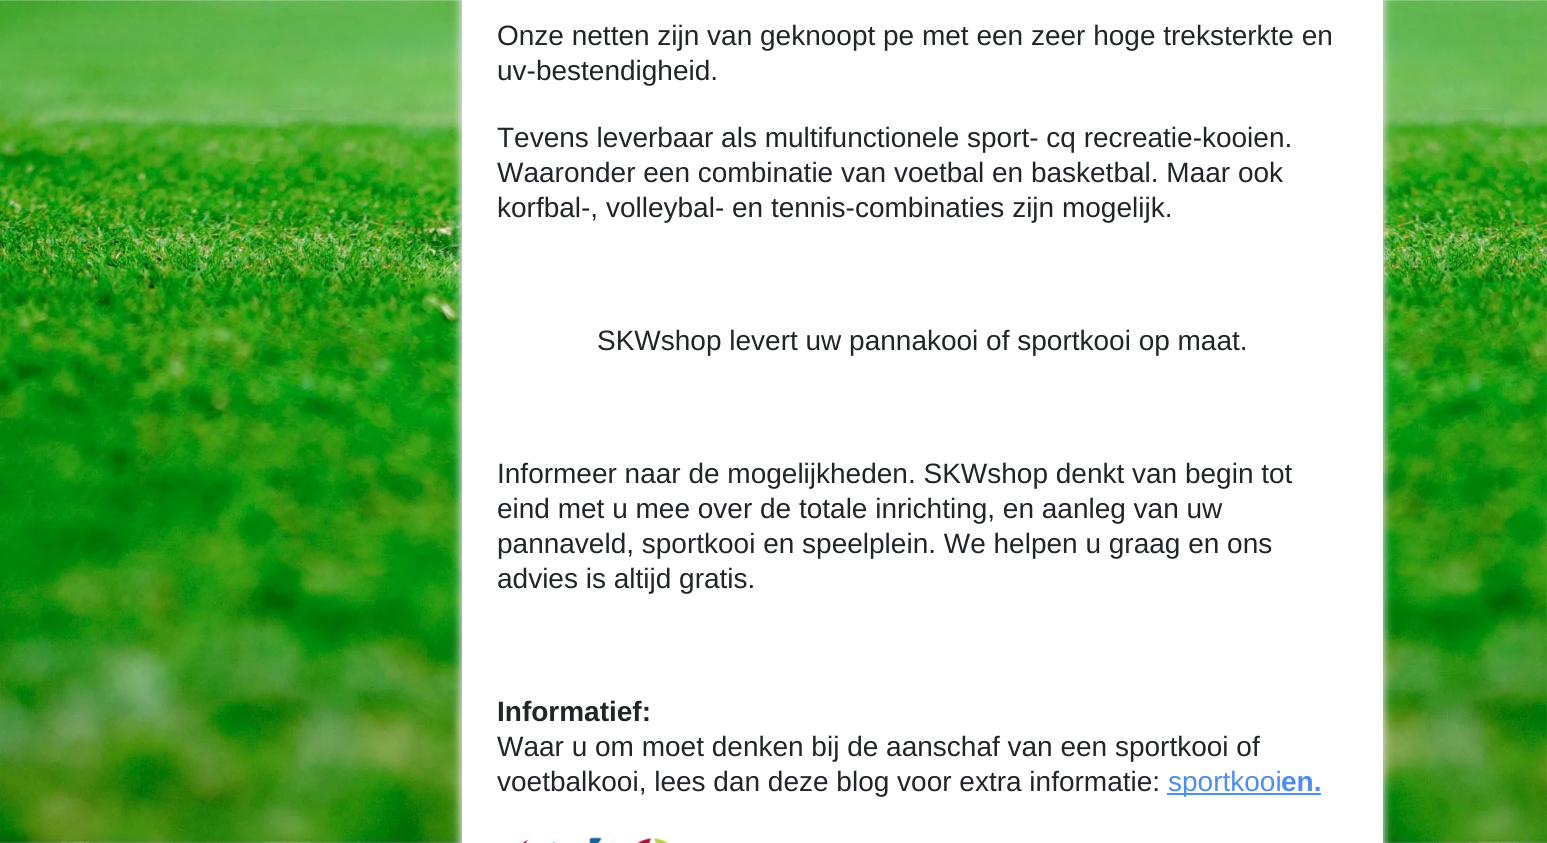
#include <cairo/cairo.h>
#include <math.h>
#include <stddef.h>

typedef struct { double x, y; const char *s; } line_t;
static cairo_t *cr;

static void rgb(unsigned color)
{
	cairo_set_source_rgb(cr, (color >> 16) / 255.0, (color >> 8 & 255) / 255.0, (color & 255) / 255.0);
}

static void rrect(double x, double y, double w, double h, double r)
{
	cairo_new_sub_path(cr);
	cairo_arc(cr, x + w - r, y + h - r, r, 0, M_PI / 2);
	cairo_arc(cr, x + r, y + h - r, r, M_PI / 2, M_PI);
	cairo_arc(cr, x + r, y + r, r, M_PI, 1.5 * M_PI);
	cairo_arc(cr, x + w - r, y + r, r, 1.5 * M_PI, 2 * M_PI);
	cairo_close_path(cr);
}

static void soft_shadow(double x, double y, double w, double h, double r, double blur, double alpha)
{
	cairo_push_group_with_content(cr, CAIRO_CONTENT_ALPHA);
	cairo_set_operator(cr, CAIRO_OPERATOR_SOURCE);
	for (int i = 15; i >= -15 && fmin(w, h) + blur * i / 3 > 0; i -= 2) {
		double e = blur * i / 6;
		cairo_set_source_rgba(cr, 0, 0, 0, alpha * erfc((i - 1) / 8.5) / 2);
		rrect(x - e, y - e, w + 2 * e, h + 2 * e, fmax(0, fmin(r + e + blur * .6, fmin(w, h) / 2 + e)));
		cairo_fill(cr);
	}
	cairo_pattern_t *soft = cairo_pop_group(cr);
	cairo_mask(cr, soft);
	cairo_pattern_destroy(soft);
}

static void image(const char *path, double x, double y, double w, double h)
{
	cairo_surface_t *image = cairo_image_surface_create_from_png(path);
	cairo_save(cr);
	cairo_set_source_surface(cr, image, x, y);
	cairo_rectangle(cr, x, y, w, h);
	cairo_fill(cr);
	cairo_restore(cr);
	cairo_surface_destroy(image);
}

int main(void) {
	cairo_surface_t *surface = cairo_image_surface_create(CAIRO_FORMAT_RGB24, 1547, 843);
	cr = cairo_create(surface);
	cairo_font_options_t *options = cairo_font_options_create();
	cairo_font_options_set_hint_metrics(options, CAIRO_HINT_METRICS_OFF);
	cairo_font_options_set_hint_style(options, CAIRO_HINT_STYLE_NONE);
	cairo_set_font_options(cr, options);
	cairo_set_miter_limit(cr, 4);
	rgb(0xffffff);
	cairo_paint(cr);
	image("img/1.png", 0, 0, 1547, 843);
	rgb(0xe5e5e5);
	soft_shadow(460, -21, 924, 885, 7, 4.5, 1);
	rgb(0xffffff);
	cairo_rectangle(cr, 462, 0, 921, 843);
	cairo_fill(cr);
	rgb(0x4e8deb);
	cairo_rectangle(cr, 1167, 793, 154, 2);
	cairo_fill(cr);
	image("img/2.png", 517, 837, 153, 6);
	cairo_select_font_face(cr, "Liberation Sans", CAIRO_FONT_SLANT_NORMAL, CAIRO_FONT_WEIGHT_NORMAL);
	cairo_set_font_size(cr, 28);
	rgb(0x212529);
	{
		static const line_t items[] = {
			{497, 45, "Onze netten zijn van geknoopt pe met een zeer hoge treksterkte en"},
			{497, 80, "uv-bestendigheid."},
			{497, 147, "Tevens leverbaar als multifunctionele sport- cq recreatie-kooien."},
			{497, 182, "Waaronder een combinatie van voetbal en basketbal. Maar ook"},
			{497, 217, "korfbal-, volleybal- en tennis-combinaties zijn mogelijk."},
			{597, 350, "SKWshop levert uw pannakooi of sportkooi op maat."},
			{497, 483, "Informeer naar de mogelijkheden. SKWshop denkt van begin tot"},
			{497, 518, "eind met u mee over de totale inrichting, en aanleg van uw"},
			{497, 553, "pannaveld, sportkooi en speelplein. We helpen u graag en ons"},
			{497, 588, "advies is altijd gratis."},
		};
		for (size_t i = 0; i < sizeof items / sizeof *items; i++) {
			cairo_move_to(cr, items[i].x, items[i].y);
			cairo_show_text(cr, items[i].s);
		}
	}
	cairo_select_font_face(cr, "Liberation Sans", CAIRO_FONT_SLANT_NORMAL, CAIRO_FONT_WEIGHT_BOLD);
	cairo_move_to(cr, 497, 721);
	cairo_show_text(cr, "Informatief:");
	cairo_select_font_face(cr, "Liberation Sans", CAIRO_FONT_SLANT_NORMAL, CAIRO_FONT_WEIGHT_NORMAL);
	cairo_move_to(cr, 497, 756);
	cairo_show_text(cr, "Waar u om moet denken bij de aanschaf van een sportkooi of");
	cairo_move_to(cr, 497, 791);
	cairo_show_text(cr, "voetbalkooi, lees dan deze blog voor extra informatie:");
	rgb(0x4e8deb);
	cairo_move_to(cr, 1168, 791);
	cairo_show_text(cr, "sportkooi");
	cairo_select_font_face(cr, "Liberation Sans", CAIRO_FONT_SLANT_NORMAL, CAIRO_FONT_WEIGHT_BOLD);
	cairo_move_to(cr, 1281, 791);
	cairo_show_text(cr, "en.");
	cairo_surface_write_to_png(surface, "page.png");
	cairo_font_options_destroy(options);
	cairo_destroy(cr);
	cairo_surface_destroy(surface);
	return 0;
}
